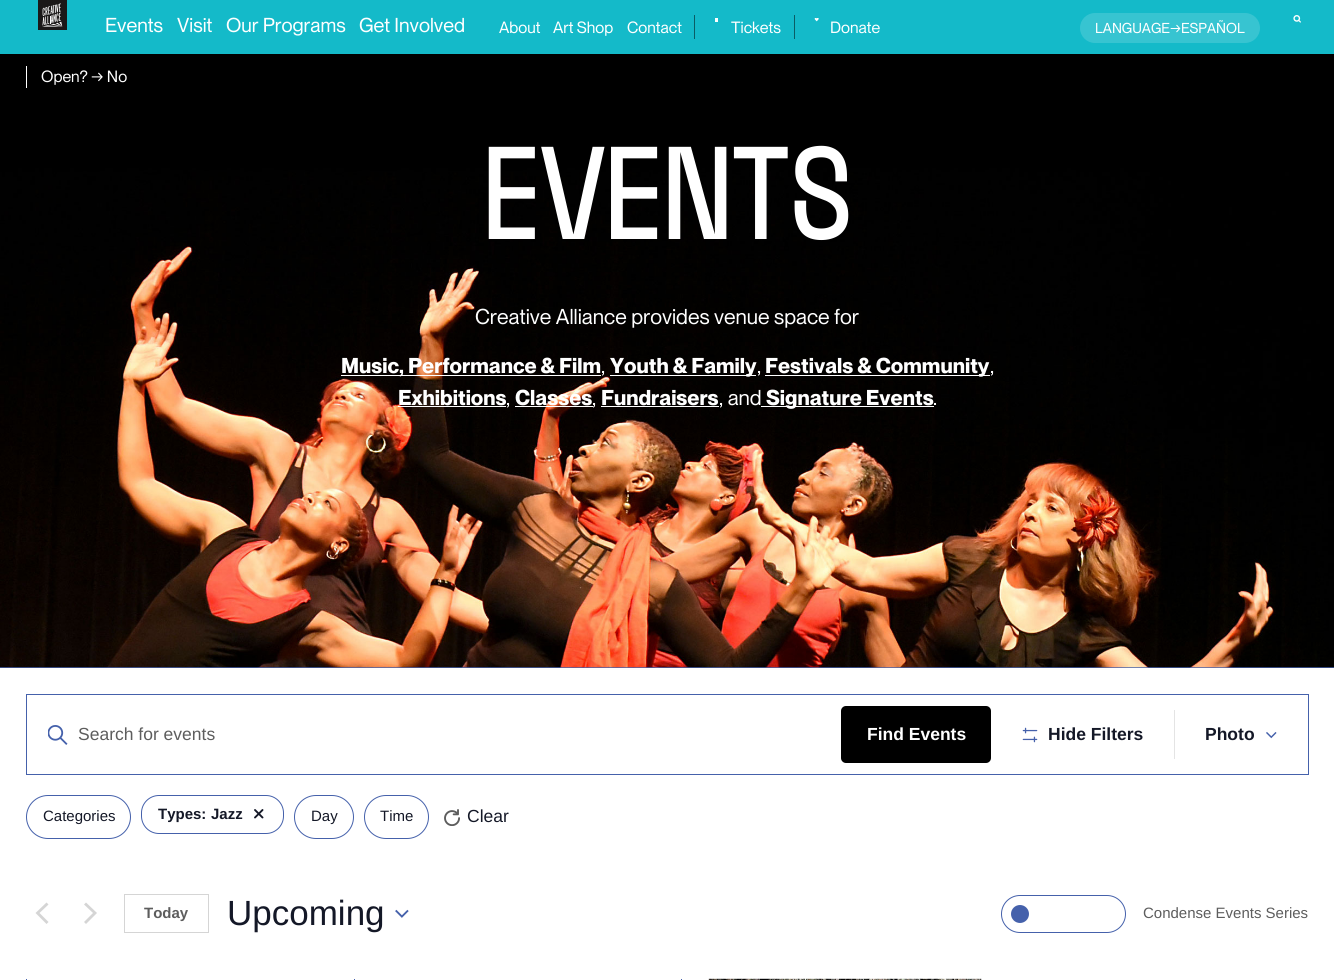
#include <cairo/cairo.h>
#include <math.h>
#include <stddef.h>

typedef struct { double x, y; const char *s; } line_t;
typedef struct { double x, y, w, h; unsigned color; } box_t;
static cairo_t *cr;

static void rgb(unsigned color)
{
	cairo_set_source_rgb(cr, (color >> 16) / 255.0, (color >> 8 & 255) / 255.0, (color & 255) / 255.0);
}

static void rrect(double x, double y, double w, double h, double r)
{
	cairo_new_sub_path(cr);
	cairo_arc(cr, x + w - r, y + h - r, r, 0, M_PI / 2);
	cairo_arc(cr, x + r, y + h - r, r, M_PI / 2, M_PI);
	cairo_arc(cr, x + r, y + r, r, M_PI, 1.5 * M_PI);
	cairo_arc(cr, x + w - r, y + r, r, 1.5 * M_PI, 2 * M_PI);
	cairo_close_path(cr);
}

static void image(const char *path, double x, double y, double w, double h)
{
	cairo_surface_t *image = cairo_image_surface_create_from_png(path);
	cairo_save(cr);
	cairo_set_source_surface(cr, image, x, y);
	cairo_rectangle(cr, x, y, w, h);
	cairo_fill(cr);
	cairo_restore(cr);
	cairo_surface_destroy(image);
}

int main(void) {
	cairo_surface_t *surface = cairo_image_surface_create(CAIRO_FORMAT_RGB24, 1334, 980);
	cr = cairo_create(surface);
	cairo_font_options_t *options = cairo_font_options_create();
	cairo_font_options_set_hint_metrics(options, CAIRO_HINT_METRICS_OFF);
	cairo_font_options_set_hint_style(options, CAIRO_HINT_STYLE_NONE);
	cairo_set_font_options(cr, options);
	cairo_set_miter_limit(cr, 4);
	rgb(0x4561ab);
	cairo_paint(cr);
	rgb(0x14bac9);
	cairo_rectangle(cr, 0, 0, 1334, 54);
	cairo_fill(cr);
	image("img/1.png", 38, 0, 29, 30);
	{
		static const box_t items[] = {
			{694, 15, 1, 24, 0x0a5d65},
			{715, 18, 3, 4, 0xffffff},
			{794, 15, 1, 24, 0x0a5d65},
		};
		for (size_t i = 0; i < sizeof items / sizeof *items; i++) {
			rgb(items[i].color);
			cairo_rectangle(cr, items[i].x, items[i].y, items[i].w, items[i].h);
			cairo_fill(cr);
		}
	}
	image("img/2.png", 814, 18, 5, 4);
	image("img/3.png", 1293, 15, 8, 8);
	rgb(0x37c4d1);
	rrect(1080, 13, 180, 30, 15);
	cairo_fill(cr);
	image("img/4.png", 0, 54, 1334, 614);
	{
		static const box_t items[] = {
			{26, 66, 1, 22, 0xffffff},
			{341, 375, 260, 1, 0xffffff},
			{610, 375, 146, 1, 0xffffff},
			{765, 375, 225, 1, 0xffffff},
			{398, 406, 108, 1, 0xffffff},
			{515, 406, 78, 1, 0xffffff},
			{601, 406, 118, 1, 0xffffff},
			{761, 406, 173, 1, 0xffffff},
			{0, 668, 1334, 312, 0xffffff},
		};
		for (size_t i = 0; i < sizeof items / sizeof *items; i++) {
			rgb(items[i].color);
			cairo_rectangle(cr, items[i].x, items[i].y, items[i].w, items[i].h);
			cairo_fill(cr);
		}
	}
	cairo_rectangle(cr, 26.5, 694.5, 1282, 80);
	rgb(0x4561ab);
	cairo_set_line_width(cr, 1);
	cairo_stroke(cr);
	image("img/5.png", 48, 725, 20, 20);
	rgb(0x000000);
	rrect(841, 706, 150, 57, 5);
	cairo_fill(cr);
	rgb(0xe4e4e4);
	cairo_rectangle(cr, 1174, 710, 1, 49);
	cairo_fill(cr);
	image("img/6.png", 1022, 727, 16, 16);
	image("img/7.png", 1266, 732, 11, 7);
	rrect(26.5, 795.5, 104, 43, 21.5);
	rgb(0x4561ab);
	cairo_stroke(cr);
	rrect(141.5, 795.5, 142, 38, 17.5);
	cairo_stroke(cr);
	image("img/8.png", 254, 809, 10, 10);
	rrect(294.5, 795.5, 59, 43, 21.5);
	cairo_stroke(cr);
	rrect(364.5, 795.5, 64, 43, 21.5);
	cairo_stroke(cr);
	image("img/9.png", 444, 809, 16, 17);
	rgb(0xd5d5d5);
	cairo_new_path(cr);
	cairo_move_to(cr, 48.5, 922);
	cairo_line_to(cr, 46.5, 924);
	cairo_line_to(cr, 35.5, 913);
	cairo_line_to(cr, 46.5, 902.5);
	cairo_line_to(cr, 48.5, 904.5);
	cairo_line_to(cr, 39.5, 913);
	cairo_close_path(cr);
	cairo_move_to(cr, 84, 904.5);
	cairo_line_to(cr, 86, 902.5);
	cairo_line_to(cr, 97, 913);
	cairo_line_to(cr, 86, 924);
	cairo_line_to(cr, 84, 922);
	cairo_line_to(cr, 93, 913);
	cairo_close_path(cr);
	cairo_fill(cr);
	cairo_rectangle(cr, 124.5, 894.5, 84, 38);
	cairo_stroke(cr);
	image("img/10.png", 395, 909, 14, 9);
	rrect(1001.5, 895.5, 124, 37, 18.5);
	rgb(0x4561ab);
	cairo_stroke(cr);
	cairo_arc(cr, 1020, 914, 9, 0, 2 * M_PI);
	cairo_fill(cr);
	{
		static const box_t items[] = {
			{26, 979, 1, 1, 0x4561ab},
			{354, 979, 1, 1, 0x4561ab},
			{681, 979, 1, 1, 0x4561ab},
		};
		for (size_t i = 0; i < sizeof items / sizeof *items; i++) {
			rgb(items[i].color);
			cairo_rectangle(cr, items[i].x, items[i].y, items[i].w, items[i].h);
			cairo_fill(cr);
		}
	}
	image("img/11.png", 708, 978, 274, 2);
	cairo_select_font_face(cr, "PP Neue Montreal", CAIRO_FONT_SLANT_NORMAL, CAIRO_FONT_WEIGHT_NORMAL);
	cairo_set_font_size(cr, 19.75);
	rgb(0xffffff);
	{
		static const line_t items[] = {
			{105, 32, "Events"},
			{177, 32, "Visit"},
			{226, 32, "Our Programs"},
			{359, 32, "Get Involved"},
		};
		for (size_t i = 0; i < sizeof items / sizeof *items; i++) {
			cairo_move_to(cr, items[i].x, items[i].y);
			cairo_show_text(cr, items[i].s);
		}
	}
	cairo_set_font_size(cr, 16);
	{
		static const line_t items[] = {
			{499, 33, "About"},
			{553, 33, "Art Shop"},
			{627, 33, "Contact"},
			{731, 33, "Tickets"},
			{830, 33, "Donate"},
		};
		for (size_t i = 0; i < sizeof items / sizeof *items; i++) {
			cairo_move_to(cr, items[i].x, items[i].y);
			cairo_show_text(cr, items[i].s);
		}
	}
	cairo_set_font_size(cr, 14.1);
	cairo_move_to(cr, 1095, 33);
	cairo_show_text(cr, "LANGUAGE→ESPAÑOL");
	cairo_set_font_size(cr, 16);
	cairo_move_to(cr, 41, 82);
	cairo_show_text(cr, "Open? → No");
	cairo_select_font_face(cr, "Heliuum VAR", CAIRO_FONT_SLANT_NORMAL, CAIRO_FONT_WEIGHT_NORMAL);
	cairo_set_font_size(cr, 169);
	cairo_move_to(cr, 483, 239);
	cairo_show_text(cr, "EVENTS");
	cairo_select_font_face(cr, "PP Neue Montreal", CAIRO_FONT_SLANT_NORMAL, CAIRO_FONT_WEIGHT_NORMAL);
	cairo_set_font_size(cr, 21.1);
	cairo_move_to(cr, 475, 324);
	cairo_show_text(cr, "Creative Alliance provides venue space for");
	cairo_select_font_face(cr, "PP Neue Montreal", CAIRO_FONT_SLANT_NORMAL, CAIRO_FONT_WEIGHT_BOLD);
	cairo_move_to(cr, 341, 373);
	cairo_show_text(cr, "Music, Performance & Film");
	cairo_select_font_face(cr, "PP Neue Montreal", CAIRO_FONT_SLANT_NORMAL, CAIRO_FONT_WEIGHT_NORMAL);
	cairo_move_to(cr, 601, 373);
	cairo_show_text(cr, ",");
	cairo_select_font_face(cr, "PP Neue Montreal", CAIRO_FONT_SLANT_NORMAL, CAIRO_FONT_WEIGHT_BOLD);
	cairo_move_to(cr, 610, 373);
	cairo_show_text(cr, "Youth & Family");
	cairo_select_font_face(cr, "PP Neue Montreal", CAIRO_FONT_SLANT_NORMAL, CAIRO_FONT_WEIGHT_NORMAL);
	cairo_move_to(cr, 757, 373);
	cairo_show_text(cr, ",");
	cairo_select_font_face(cr, "PP Neue Montreal", CAIRO_FONT_SLANT_NORMAL, CAIRO_FONT_WEIGHT_BOLD);
	cairo_move_to(cr, 765, 373);
	cairo_show_text(cr, "Festivals & Community");
	cairo_select_font_face(cr, "PP Neue Montreal", CAIRO_FONT_SLANT_NORMAL, CAIRO_FONT_WEIGHT_NORMAL);
	cairo_move_to(cr, 990, 373);
	cairo_show_text(cr, ",");
	cairo_select_font_face(cr, "PP Neue Montreal", CAIRO_FONT_SLANT_NORMAL, CAIRO_FONT_WEIGHT_BOLD);
	cairo_move_to(cr, 398, 405);
	cairo_show_text(cr, "Exhibitions");
	cairo_select_font_face(cr, "PP Neue Montreal", CAIRO_FONT_SLANT_NORMAL, CAIRO_FONT_WEIGHT_NORMAL);
	cairo_move_to(cr, 506, 405);
	cairo_show_text(cr, ",");
	cairo_select_font_face(cr, "PP Neue Montreal", CAIRO_FONT_SLANT_NORMAL, CAIRO_FONT_WEIGHT_BOLD);
	cairo_move_to(cr, 515, 405);
	cairo_show_text(cr, "Classes");
	cairo_select_font_face(cr, "PP Neue Montreal", CAIRO_FONT_SLANT_NORMAL, CAIRO_FONT_WEIGHT_NORMAL);
	cairo_move_to(cr, 592, 405);
	cairo_show_text(cr, ",");
	cairo_select_font_face(cr, "PP Neue Montreal", CAIRO_FONT_SLANT_NORMAL, CAIRO_FONT_WEIGHT_BOLD);
	cairo_move_to(cr, 601, 405);
	cairo_show_text(cr, "Fundraisers");
	cairo_select_font_face(cr, "PP Neue Montreal", CAIRO_FONT_SLANT_NORMAL, CAIRO_FONT_WEIGHT_NORMAL);
	cairo_move_to(cr, 719, 405);
	cairo_show_text(cr, ", and");
	cairo_select_font_face(cr, "PP Neue Montreal", CAIRO_FONT_SLANT_NORMAL, CAIRO_FONT_WEIGHT_BOLD);
	cairo_move_to(cr, 766, 405);
	cairo_show_text(cr, "Signature Events");
	cairo_select_font_face(cr, "PP Neue Montreal", CAIRO_FONT_SLANT_NORMAL, CAIRO_FONT_WEIGHT_NORMAL);
	cairo_move_to(cr, 933, 405);
	cairo_show_text(cr, ".");
	cairo_select_font_face(cr, "Liberation Sans", CAIRO_FONT_SLANT_NORMAL, CAIRO_FONT_WEIGHT_NORMAL);
	cairo_set_font_size(cr, 17.5);
	rgb(0x5d5d5d);
	cairo_move_to(cr, 78, 740);
	cairo_show_text(cr, "Search for events");
	cairo_select_font_face(cr, "Liberation Sans", CAIRO_FONT_SLANT_NORMAL, CAIRO_FONT_WEIGHT_BOLD);
	rgb(0xffffff);
	cairo_move_to(cr, 867, 740);
	cairo_show_text(cr, "Find Events");
	rgb(0x141827);
	cairo_move_to(cr, 1048, 740);
	cairo_show_text(cr, "Hide Filters");
	cairo_move_to(cr, 1205, 740);
	cairo_show_text(cr, "Photo");
	cairo_select_font_face(cr, "Liberation Sans", CAIRO_FONT_SLANT_NORMAL, CAIRO_FONT_WEIGHT_NORMAL);
	cairo_set_font_size(cr, 15);
	cairo_move_to(cr, 43, 821);
	cairo_show_text(cr, "Categories");
	cairo_select_font_face(cr, "Liberation Sans", CAIRO_FONT_SLANT_NORMAL, CAIRO_FONT_WEIGHT_BOLD);
	cairo_move_to(cr, 158, 819);
	cairo_show_text(cr, "Types:");
	cairo_move_to(cr, 211, 819);
	cairo_show_text(cr, "Jazz");
	cairo_select_font_face(cr, "Liberation Sans", CAIRO_FONT_SLANT_NORMAL, CAIRO_FONT_WEIGHT_NORMAL);
	cairo_move_to(cr, 311, 821);
	cairo_show_text(cr, "Day");
	cairo_move_to(cr, 380, 821);
	cairo_show_text(cr, "Time");
	cairo_set_font_size(cr, 17.5);
	cairo_move_to(cr, 467, 822);
	cairo_show_text(cr, "Clear");
	cairo_select_font_face(cr, "Liberation Sans", CAIRO_FONT_SLANT_NORMAL, CAIRO_FONT_WEIGHT_BOLD);
	cairo_set_font_size(cr, 15);
	rgb(0x5d5d5d);
	cairo_move_to(cr, 144, 918);
	cairo_show_text(cr, "Today");
	cairo_select_font_face(cr, "Liberation Sans", CAIRO_FONT_SLANT_NORMAL, CAIRO_FONT_WEIGHT_NORMAL);
	cairo_set_font_size(cr, 35);
	rgb(0x141827);
	cairo_move_to(cr, 227, 925);
	cairo_show_text(cr, "Upcoming");
	cairo_set_font_size(cr, 15);
	rgb(0x5d5d5d);
	cairo_move_to(cr, 1143, 918);
	cairo_show_text(cr, "Condense Events Series");
	cairo_surface_write_to_png(surface, "page.png");
	cairo_font_options_destroy(options);
	cairo_destroy(cr);
	cairo_surface_destroy(surface);
	return 0;
}
